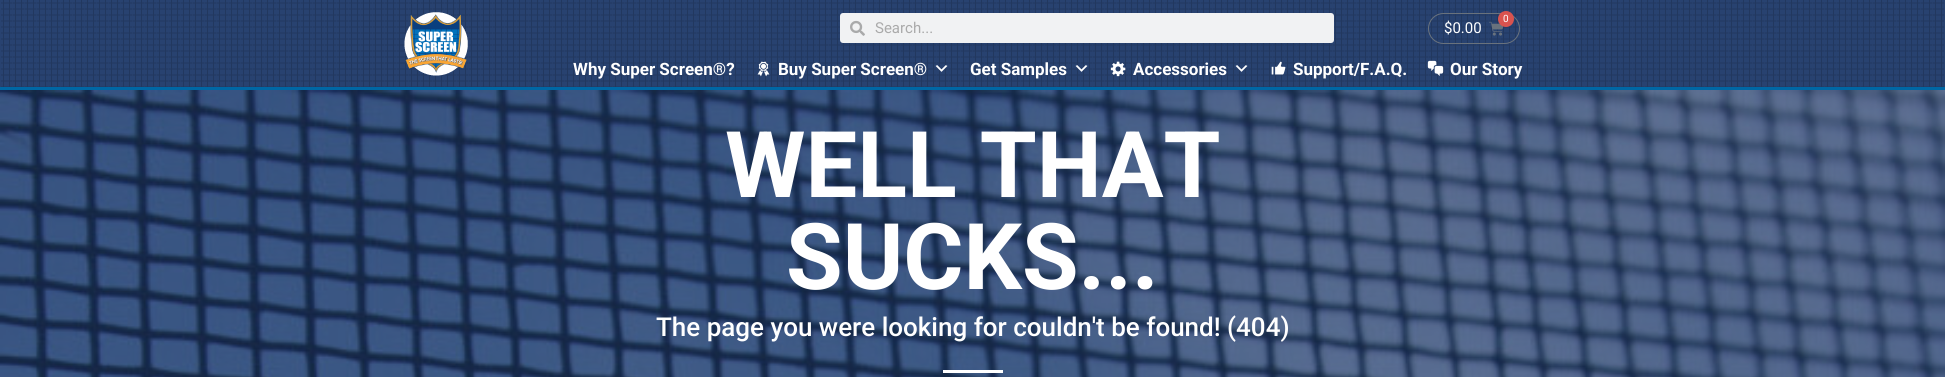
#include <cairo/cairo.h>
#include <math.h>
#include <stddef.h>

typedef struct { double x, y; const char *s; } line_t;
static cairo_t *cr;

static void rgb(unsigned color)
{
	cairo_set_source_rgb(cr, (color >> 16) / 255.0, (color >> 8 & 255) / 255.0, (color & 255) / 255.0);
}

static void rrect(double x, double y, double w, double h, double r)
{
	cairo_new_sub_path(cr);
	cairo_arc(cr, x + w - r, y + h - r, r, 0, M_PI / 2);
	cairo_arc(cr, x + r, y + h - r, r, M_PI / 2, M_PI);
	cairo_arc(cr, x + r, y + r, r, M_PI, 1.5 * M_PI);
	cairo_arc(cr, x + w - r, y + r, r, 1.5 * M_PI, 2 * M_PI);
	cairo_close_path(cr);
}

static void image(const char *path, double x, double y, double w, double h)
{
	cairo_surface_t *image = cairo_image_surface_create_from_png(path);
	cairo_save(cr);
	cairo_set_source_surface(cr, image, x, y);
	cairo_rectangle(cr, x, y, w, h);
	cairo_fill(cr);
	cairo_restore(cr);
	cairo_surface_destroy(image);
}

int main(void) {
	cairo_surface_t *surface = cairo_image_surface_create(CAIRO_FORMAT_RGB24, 1945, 377);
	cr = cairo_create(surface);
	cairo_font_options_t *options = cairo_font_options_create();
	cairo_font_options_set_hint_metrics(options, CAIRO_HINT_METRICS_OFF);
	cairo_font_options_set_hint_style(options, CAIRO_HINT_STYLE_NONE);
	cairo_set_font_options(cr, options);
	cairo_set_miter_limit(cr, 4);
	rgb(0xffffff);
	cairo_paint(cr);
	rgb(0x284270);
	cairo_rectangle(cr, 0, 0, 1945, 87);
	cairo_fill(cr);
	rgb(0x0067a4);
	cairo_rectangle(cr, 0, 87, 1945, 3);
	cairo_fill(cr);
	image("img/1.png", 1, 0, 1943, 87);
	image("img/2.png", 404, 12, 64, 64);
	rgb(0xf1f2f3);
	rrect(840, 13, 494, 30, 3);
	cairo_fill(cr);
	image("img/3.png", 850, 20, 15, 16);
	rrect(1428.5, 13.5, 91, 30, 15);
	rgb(0x69727d);
	cairo_set_line_width(cr, 1);
	cairo_stroke(cr);
	image("img/4.png", 1489, 21, 15, 15);
	rgb(0xd9534f);
	cairo_arc(cr, 1506, 19, 8, 0, 2 * M_PI);
	cairo_fill(cr);
	image("img/5.png", 757, 61, 13, 16);
	image("img/6.png", 935, 65, 13, 7);
	image("img/7.png", 1075, 65, 13, 7);
	image("img/8.png", 1110, 61, 16, 16);
	image("img/6.png", 1235, 65, 13, 7);
	image("img/9.png", 1271, 61, 15, 14);
	image("img/10.png", 1427, 60, 17, 16);
	image("img/11.png", 0, 90, 1945, 287);
	rgb(0xffffff);
	cairo_rectangle(cr, 943, 370, 60, 3);
	cairo_fill(cr);
	cairo_select_font_face(cr, "Roboto", CAIRO_FONT_SLANT_NORMAL, CAIRO_FONT_WEIGHT_NORMAL);
	cairo_set_font_size(cr, 15);
	rgb(0xaaaaaa);
	cairo_move_to(cr, 875, 33);
	cairo_show_text(cr, "Search...");
	cairo_set_font_size(cr, 10);
	rgb(0xffffff);
	cairo_move_to(cr, 1503, 22);
	cairo_show_text(cr, "0");
	cairo_set_font_size(cr, 15);
	cairo_move_to(cr, 1444, 33);
	cairo_show_text(cr, "$0.00");
	cairo_select_font_face(cr, "Roboto", CAIRO_FONT_SLANT_NORMAL, CAIRO_FONT_WEIGHT_BOLD);
	cairo_set_font_size(cr, 17);
	{
		static const line_t items[] = {
			{573, 75, "Why Super Screen®?"},
			{778, 75, "Buy Super Screen®"},
			{970, 75, "Get Samples"},
			{1133, 75, "Accessories"},
			{1293, 75, "Support/F.A.Q."},
			{1450, 75, "Our Story"},
		};
		for (size_t i = 0; i < sizeof items / sizeof *items; i++) {
			cairo_move_to(cr, items[i].x, items[i].y);
			cairo_show_text(cr, items[i].s);
		}
	}
	cairo_set_font_size(cr, 92);
	cairo_move_to(cr, 725, 197);
	cairo_show_text(cr, "WELL THAT");
	cairo_move_to(cr, 786, 289);
	cairo_show_text(cr, "SUCKS...");
	cairo_select_font_face(cr, "Roboto Medium", CAIRO_FONT_SLANT_NORMAL, CAIRO_FONT_WEIGHT_NORMAL);
	cairo_set_font_size(cr, 26);
	cairo_move_to(cr, 656, 336);
	cairo_show_text(cr, "The page you were looking for couldn't be found! (404)");
	cairo_surface_write_to_png(surface, "page.png");
	cairo_font_options_destroy(options);
	cairo_destroy(cr);
	cairo_surface_destroy(surface);
	return 0;
}
